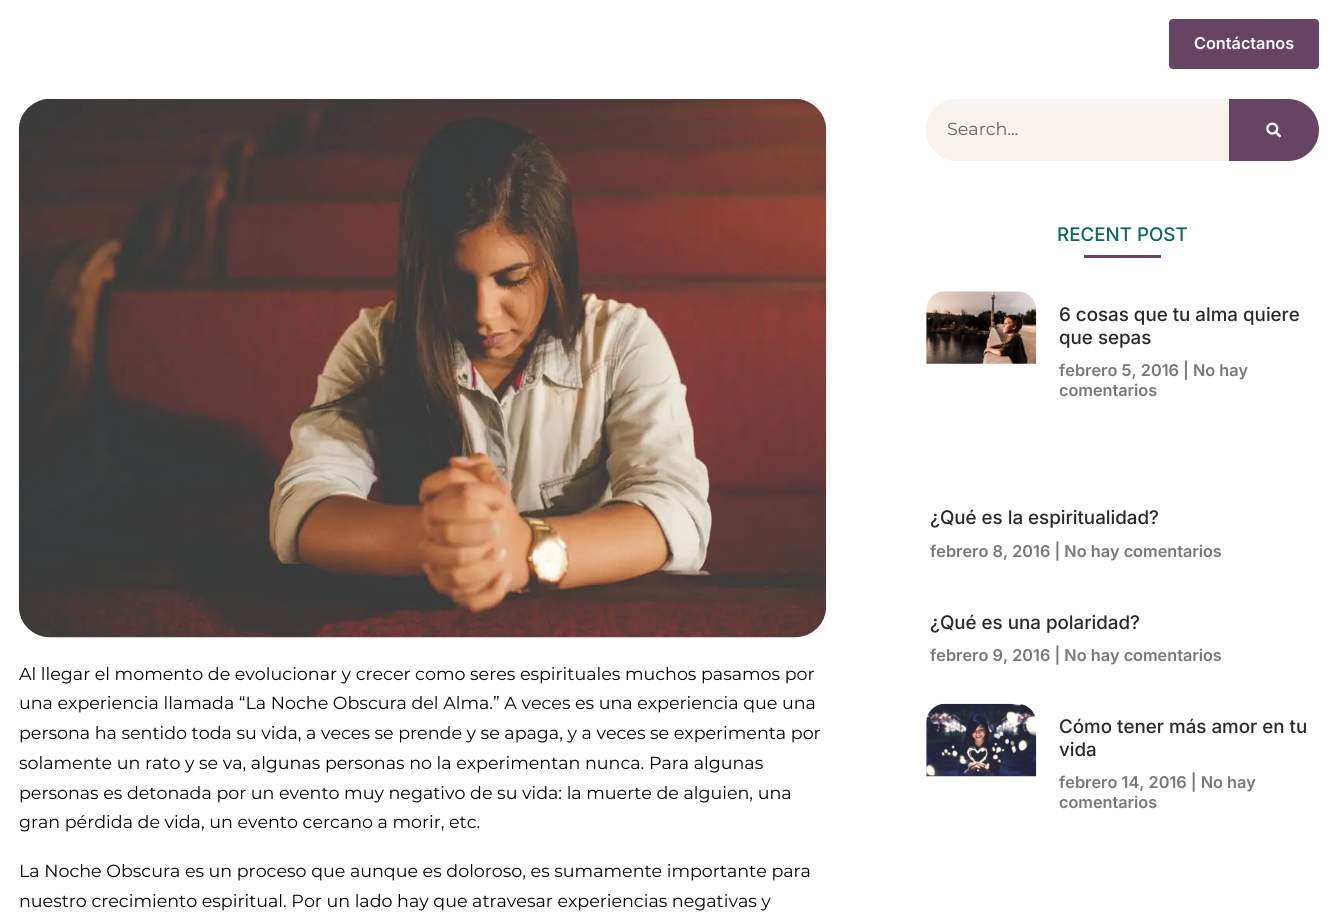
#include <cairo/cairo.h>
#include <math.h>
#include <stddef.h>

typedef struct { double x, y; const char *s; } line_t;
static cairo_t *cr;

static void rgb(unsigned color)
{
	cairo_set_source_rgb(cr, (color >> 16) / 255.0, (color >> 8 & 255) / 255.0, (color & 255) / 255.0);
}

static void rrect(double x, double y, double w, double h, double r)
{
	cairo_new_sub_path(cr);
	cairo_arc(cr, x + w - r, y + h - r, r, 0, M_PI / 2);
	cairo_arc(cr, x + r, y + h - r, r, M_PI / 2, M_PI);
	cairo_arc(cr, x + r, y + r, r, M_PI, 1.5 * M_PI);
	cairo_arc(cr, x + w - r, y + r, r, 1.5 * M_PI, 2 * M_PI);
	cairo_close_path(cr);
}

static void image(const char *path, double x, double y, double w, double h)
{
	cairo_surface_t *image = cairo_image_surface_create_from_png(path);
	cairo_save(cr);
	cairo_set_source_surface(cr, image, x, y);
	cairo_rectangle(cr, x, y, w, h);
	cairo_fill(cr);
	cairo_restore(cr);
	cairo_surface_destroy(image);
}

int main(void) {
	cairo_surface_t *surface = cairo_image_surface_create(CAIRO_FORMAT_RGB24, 1337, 923);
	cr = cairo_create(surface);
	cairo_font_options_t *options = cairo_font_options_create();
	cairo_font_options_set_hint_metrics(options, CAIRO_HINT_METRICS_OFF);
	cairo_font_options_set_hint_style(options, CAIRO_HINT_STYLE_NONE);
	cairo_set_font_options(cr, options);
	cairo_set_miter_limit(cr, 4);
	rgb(0xffffff);
	cairo_paint(cr);
	rgb(0x674464);
	rrect(1169, 19, 150, 50, 4);
	cairo_fill(cr);
	image("img/1.png", 18, 98, 809, 540);
	rgb(0xf8f3ec);
	rrect(926, 99, 393, 62, 31);
	cairo_fill(cr);
	cairo_new_path(cr);
	cairo_move_to(cr, 957, 99);
	cairo_line_to(cr, 1225, 99);
	cairo_curve_to(cr, 1227, 99, 1229, 101, 1229, 103);
	cairo_line_to(cr, 1229, 157);
	cairo_curve_to(cr, 1229, 159, 1227, 161, 1225, 161);
	cairo_line_to(cr, 957, 161);
	cairo_curve_to(cr, 940, 161, 926, 147, 926, 130);
	cairo_curve_to(cr, 926, 113, 940, 99, 957, 99);
	cairo_close_path(cr);
	cairo_fill(cr);
	rgb(0x674464);
	cairo_new_path(cr);
	cairo_move_to(cr, 1229, 99);
	cairo_line_to(cr, 1288, 99);
	cairo_curve_to(cr, 1305, 99, 1319, 113, 1319, 130);
	cairo_curve_to(cr, 1319, 147, 1305, 161, 1288, 161);
	cairo_line_to(cr, 1229, 161);
	cairo_close_path(cr);
	cairo_fill(cr);
	image("img/2.png", 1266, 122, 15, 16);
	cairo_rectangle(cr, 1084, 255, 77, 3);
	cairo_fill(cr);
	image("img/3.png", 926, 291, 111, 73);
	image("img/4.png", 926, 703, 111, 74);
	cairo_select_font_face(cr, "Inter SemiBold", CAIRO_FONT_SLANT_NORMAL, CAIRO_FONT_WEIGHT_NORMAL);
	cairo_set_font_size(cr, 16.25);
	rgb(0xffffff);
	cairo_move_to(cr, 1194, 49);
	cairo_show_text(cr, "Contáctanos");
	cairo_select_font_face(cr, "Montserrat", CAIRO_FONT_SLANT_NORMAL, CAIRO_FONT_WEIGHT_NORMAL);
	cairo_set_font_size(cr, 17.5);
	rgb(0x030303);
	{
		static const line_t items[] = {
			{19, 680, "Al llegar el momento de evolucionar y crecer como seres espirituales muchos pasamos por"},
			{19, 709, "una experiencia llamada “La Noche Obscura del Alma.” A veces es una experiencia que una"},
			{19, 739, "persona ha sentido toda su vida, a veces se prende y se apaga, y a veces se experimenta por"},
			{19, 769, "solamente un rato y se va, algunas personas no la experimentan nunca. Para algunas"},
			{19, 799, "personas es detonada por un evento muy negativo de su vida: la muerte de alguien, una"},
			{19, 828, "gran pérdida de vida, un evento cercano a morir, etc."},
			{19, 877, "La Noche Obscura es un proceso que aunque es doloroso, es sumamente importante para"},
			{19, 907, "nuestro crecimiento espiritual. Por un lado hay que atravesar experiencias negativas y"},
		};
		for (size_t i = 0; i < sizeof items / sizeof *items; i++) {
			cairo_move_to(cr, items[i].x, items[i].y);
			cairo_show_text(cr, items[i].s);
		}
	}
	rgb(0x656360);
	cairo_move_to(cr, 947, 135);
	cairo_show_text(cr, "Search...");
	cairo_select_font_face(cr, "Inter Medium", CAIRO_FONT_SLANT_NORMAL, CAIRO_FONT_WEIGHT_NORMAL);
	cairo_set_font_size(cr, 18.75);
	rgb(0x096a5f);
	cairo_move_to(cr, 1057, 241);
	cairo_show_text(cr, "RECENT POST");
	rgb(0x292929);
	cairo_move_to(cr, 1059, 321);
	cairo_show_text(cr, "6 cosas que tu alma quiere");
	cairo_move_to(cr, 1059, 344);
	cairo_show_text(cr, "que sepas");
	cairo_select_font_face(cr, "Inter SemiBold", CAIRO_FONT_SLANT_NORMAL, CAIRO_FONT_WEIGHT_NORMAL);
	cairo_set_font_size(cr, 16.25);
	rgb(0x787878);
	cairo_move_to(cr, 1059, 376);
	cairo_show_text(cr, "febrero 5, 2016 | No hay");
	cairo_move_to(cr, 1059, 396);
	cairo_show_text(cr, "comentarios");
	cairo_select_font_face(cr, "Inter Medium", CAIRO_FONT_SLANT_NORMAL, CAIRO_FONT_WEIGHT_NORMAL);
	cairo_set_font_size(cr, 18.75);
	rgb(0x292929);
	cairo_move_to(cr, 930, 524);
	cairo_show_text(cr, "¿Qué es la espiritualidad?");
	cairo_select_font_face(cr, "Inter SemiBold", CAIRO_FONT_SLANT_NORMAL, CAIRO_FONT_WEIGHT_NORMAL);
	cairo_set_font_size(cr, 16.25);
	rgb(0x787878);
	cairo_move_to(cr, 930, 557);
	cairo_show_text(cr, "febrero 8, 2016 | No hay comentarios");
	cairo_select_font_face(cr, "Inter Medium", CAIRO_FONT_SLANT_NORMAL, CAIRO_FONT_WEIGHT_NORMAL);
	cairo_set_font_size(cr, 18.75);
	rgb(0x292929);
	cairo_move_to(cr, 930, 629);
	cairo_show_text(cr, "¿Qué es una polaridad?");
	cairo_select_font_face(cr, "Inter SemiBold", CAIRO_FONT_SLANT_NORMAL, CAIRO_FONT_WEIGHT_NORMAL);
	cairo_set_font_size(cr, 16.25);
	rgb(0x787878);
	cairo_move_to(cr, 930, 661);
	cairo_show_text(cr, "febrero 9, 2016 | No hay comentarios");
	cairo_select_font_face(cr, "Inter Medium", CAIRO_FONT_SLANT_NORMAL, CAIRO_FONT_WEIGHT_NORMAL);
	cairo_set_font_size(cr, 18.75);
	rgb(0x292929);
	cairo_move_to(cr, 1059, 733);
	cairo_show_text(cr, "Cómo tener más amor en tu");
	cairo_move_to(cr, 1059, 756);
	cairo_show_text(cr, "vida");
	cairo_select_font_face(cr, "Inter SemiBold", CAIRO_FONT_SLANT_NORMAL, CAIRO_FONT_WEIGHT_NORMAL);
	cairo_set_font_size(cr, 16.25);
	rgb(0x787878);
	cairo_move_to(cr, 1059, 788);
	cairo_show_text(cr, "febrero 14, 2016 | No hay");
	cairo_move_to(cr, 1059, 808);
	cairo_show_text(cr, "comentarios");
	cairo_surface_write_to_png(surface, "page.png");
	cairo_font_options_destroy(options);
	cairo_destroy(cr);
	cairo_surface_destroy(surface);
	return 0;
}
